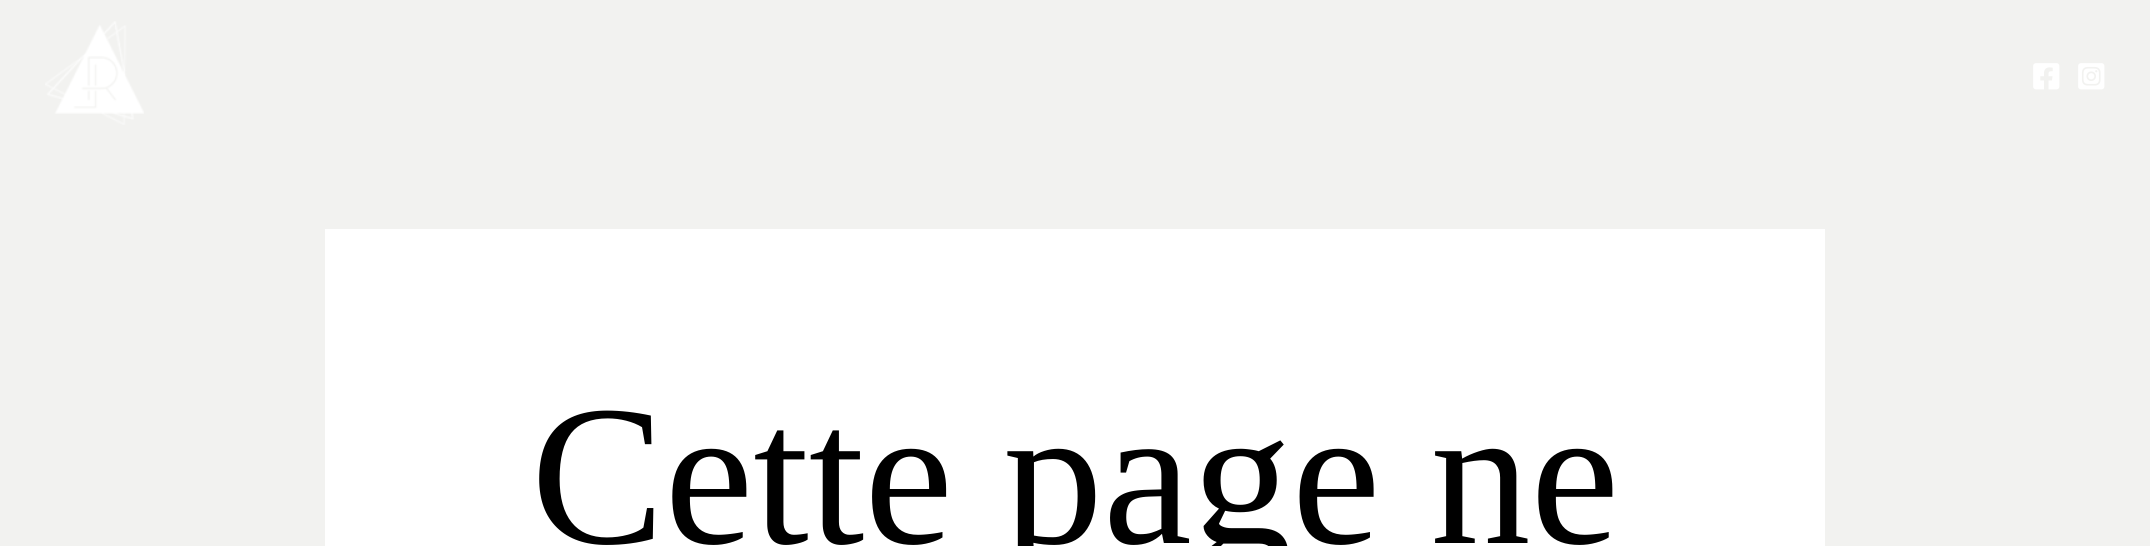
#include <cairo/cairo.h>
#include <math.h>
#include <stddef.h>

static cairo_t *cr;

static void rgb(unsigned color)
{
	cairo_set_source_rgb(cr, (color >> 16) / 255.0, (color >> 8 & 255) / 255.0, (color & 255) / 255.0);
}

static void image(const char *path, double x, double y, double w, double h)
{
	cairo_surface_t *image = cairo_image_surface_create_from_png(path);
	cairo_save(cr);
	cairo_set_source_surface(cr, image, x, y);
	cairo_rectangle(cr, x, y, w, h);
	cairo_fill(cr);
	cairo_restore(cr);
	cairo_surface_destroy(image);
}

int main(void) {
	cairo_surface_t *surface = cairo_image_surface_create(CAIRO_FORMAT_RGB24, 2150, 546);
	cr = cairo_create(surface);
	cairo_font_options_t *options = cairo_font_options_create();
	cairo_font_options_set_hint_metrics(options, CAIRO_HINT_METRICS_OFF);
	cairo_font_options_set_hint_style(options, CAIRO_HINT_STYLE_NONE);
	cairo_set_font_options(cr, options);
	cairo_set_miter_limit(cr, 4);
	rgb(0xf2f2f0);
	cairo_paint(cr);
	image("img/1.png", 45, 21, 99, 104);
	image("img/2.png", 2033, 63, 27, 27);
	image("img/3.png", 2078, 63, 27, 27);
	rgb(0xffffff);
	cairo_rectangle(cr, 325, 229, 1500, 317);
	cairo_fill(cr);
	cairo_select_font_face(cr, "Liberation Serif", CAIRO_FONT_SLANT_NORMAL, CAIRO_FONT_WEIGHT_NORMAL);
	cairo_set_font_size(cr, 200);
	rgb(0x000000);
	cairo_move_to(cr, 531, 543);
	cairo_show_text(cr, "Cette page ne");
	cairo_surface_write_to_png(surface, "page.png");
	cairo_font_options_destroy(options);
	cairo_destroy(cr);
	cairo_surface_destroy(surface);
	return 0;
}
